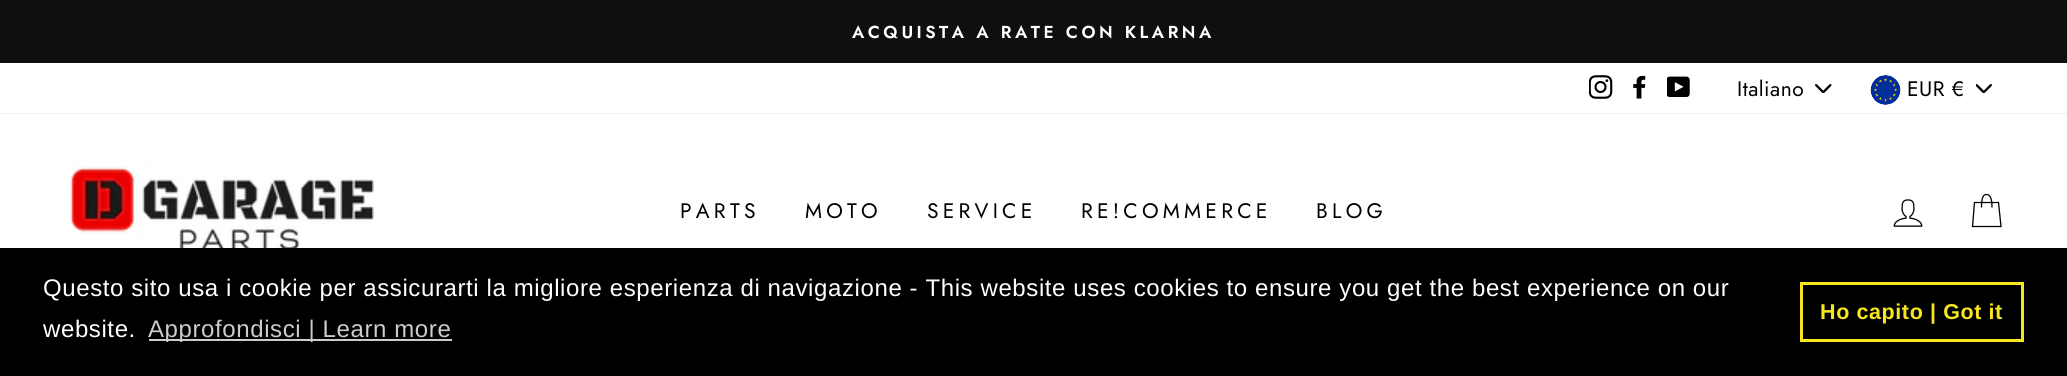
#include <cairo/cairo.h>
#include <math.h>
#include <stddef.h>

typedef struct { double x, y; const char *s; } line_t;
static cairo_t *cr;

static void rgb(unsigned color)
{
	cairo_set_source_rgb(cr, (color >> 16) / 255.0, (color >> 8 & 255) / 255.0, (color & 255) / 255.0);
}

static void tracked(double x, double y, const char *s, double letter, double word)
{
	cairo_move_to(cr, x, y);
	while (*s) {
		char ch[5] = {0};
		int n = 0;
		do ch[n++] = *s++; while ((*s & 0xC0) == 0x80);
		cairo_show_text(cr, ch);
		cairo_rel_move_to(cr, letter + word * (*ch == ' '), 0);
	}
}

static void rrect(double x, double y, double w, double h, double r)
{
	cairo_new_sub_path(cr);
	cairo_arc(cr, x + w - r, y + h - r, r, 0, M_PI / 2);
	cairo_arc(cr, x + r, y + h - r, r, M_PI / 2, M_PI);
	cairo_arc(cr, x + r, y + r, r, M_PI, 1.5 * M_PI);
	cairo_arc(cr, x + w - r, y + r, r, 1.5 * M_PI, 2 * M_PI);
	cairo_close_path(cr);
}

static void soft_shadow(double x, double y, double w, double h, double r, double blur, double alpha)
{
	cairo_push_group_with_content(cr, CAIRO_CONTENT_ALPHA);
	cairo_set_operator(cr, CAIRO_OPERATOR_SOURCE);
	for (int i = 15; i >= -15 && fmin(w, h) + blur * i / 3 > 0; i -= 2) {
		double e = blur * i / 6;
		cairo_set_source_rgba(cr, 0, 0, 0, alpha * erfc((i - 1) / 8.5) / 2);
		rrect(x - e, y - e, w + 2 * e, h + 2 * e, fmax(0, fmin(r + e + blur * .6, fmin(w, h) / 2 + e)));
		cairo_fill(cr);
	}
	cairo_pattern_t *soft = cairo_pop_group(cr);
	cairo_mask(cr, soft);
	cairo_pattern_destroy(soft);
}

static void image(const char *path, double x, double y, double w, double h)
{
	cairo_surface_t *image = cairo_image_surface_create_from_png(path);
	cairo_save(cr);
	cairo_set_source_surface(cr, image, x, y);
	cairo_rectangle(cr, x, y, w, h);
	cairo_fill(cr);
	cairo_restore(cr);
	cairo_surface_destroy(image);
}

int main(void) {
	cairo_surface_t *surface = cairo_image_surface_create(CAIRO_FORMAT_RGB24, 2067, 376);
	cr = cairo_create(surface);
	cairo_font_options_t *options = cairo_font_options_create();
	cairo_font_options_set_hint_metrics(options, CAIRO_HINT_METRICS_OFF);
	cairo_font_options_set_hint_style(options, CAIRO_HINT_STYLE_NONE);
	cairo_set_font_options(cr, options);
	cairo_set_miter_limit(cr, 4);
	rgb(0xffffff);
	cairo_paint(cr);
	rgb(0x0f0f0f);
	cairo_rectangle(cr, 0, 0, 2067, 63);
	cairo_fill(cr);
	image("img/1.png", 1589, 75, 24, 24);
	image("img/2.png", 1633, 75, 13, 24);
	image("img/3.png", 1667, 76, 23, 21);
	image("img/4.png", 1815, 84, 17, 9);
	image("img/5.png", 1976, 84, 16, 9);
	image("img/6.png", 1870, 75, 31, 30);
	cairo_save(cr);
	cairo_rectangle(cr, 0, 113, 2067, 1);
	cairo_clip(cr);
	rgb(0x000000);
	soft_shadow(0, 114, 2067, 195, 0, 1, 0.2);
	cairo_restore(cr);
	image("img/7.png", 70, 161, 306, 87);
	image("img/8.png", 1893, 199, 30, 28);
	cairo_new_path(cr);
	cairo_move_to(cr, 1981.5, 207.5);
	cairo_curve_to(cr, 1981.5, 197, 1983.5, 194.5, 1986.5, 194.5);
	cairo_curve_to(cr, 1989.5, 194.5, 1992, 197, 1992, 207.5);
	cairo_move_to(cr, 1974.5, 202.5);
	cairo_line_to(cr, 1998.5, 202.5);
	cairo_line_to(cr, 2001, 226.5);
	cairo_line_to(cr, 1972.5, 226.5);
	cairo_close_path(cr);
	rgb(0x000000);
	cairo_set_line_width(cr, 1.3);
	cairo_stroke(cr);
	cairo_rectangle(cr, 0, 248, 2067, 128);
	cairo_fill(cr);
	rgb(0xcccccc);
	cairo_rectangle(cr, 149, 339, 303, 2);
	cairo_fill(cr);
	cairo_rectangle(cr, 1801.5, 283.5, 221, 57);
	rgb(0xf8e71c);
	cairo_set_line_width(cr, 3);
	cairo_stroke(cr);
	cairo_select_font_face(cr, "Jost SemiBold", CAIRO_FONT_SLANT_NORMAL, CAIRO_FONT_WEIGHT_NORMAL);
	cairo_set_font_size(cr, 17.3);
	rgb(0xffffff);
	tracked(852, 38, "ACQUISTA A RATE CON KLARNA", 3.5, 0);
	cairo_select_font_face(cr, "Jost", CAIRO_FONT_SLANT_NORMAL, CAIRO_FONT_WEIGHT_NORMAL);
	cairo_set_font_size(cr, 21);
	rgb(0x000000);
	tracked(1737, 96, "Italiano", 0.5, 0);
	tracked(1907, 96, "EUR €", 0.5, 0);
	{
		static const line_t items[] = {
			{680, 218, "PARTS"},
			{805, 218, "MOTO"},
			{927, 218, "SERVICE"},
			{1081, 218, "RE!COMMERCE"},
			{1316, 218, "BLOG"},
		};
		for (size_t i = 0; i < sizeof items / sizeof *items; i++) {
			tracked(items[i].x, items[i].y, items[i].s, 4.25, 0);
		}
	}
	cairo_select_font_face(cr, "Liberation Sans", CAIRO_FONT_SLANT_NORMAL, CAIRO_FONT_WEIGHT_NORMAL);
	cairo_set_font_size(cr, 24);
	rgb(0xffffff);
	tracked(43, 296, "Questo sito usa i cookie per assicurarti la migliore esperienza di navigazione - This website uses cookies to ensure you get the best experience on our", 0.6, 0);
	tracked(43, 337, "website.", 0.6, 0);
	rgb(0xcccccc);
	tracked(148, 337, "Approfondisci | Learn more", 0.6, 0);
	cairo_select_font_face(cr, "Liberation Sans", CAIRO_FONT_SLANT_NORMAL, CAIRO_FONT_WEIGHT_BOLD);
	cairo_set_font_size(cr, 21.5);
	rgb(0xf8e71c);
	tracked(1820, 319, "Ho capito | Got it", 0.6, 0);
	cairo_surface_write_to_png(surface, "page.png");
	cairo_font_options_destroy(options);
	cairo_destroy(cr);
	cairo_surface_destroy(surface);
	return 0;
}
